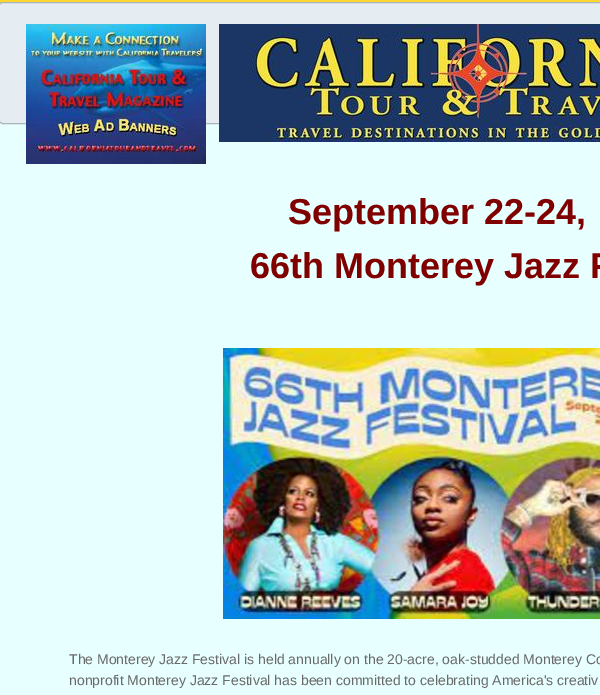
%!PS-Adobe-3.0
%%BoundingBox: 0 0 600 695
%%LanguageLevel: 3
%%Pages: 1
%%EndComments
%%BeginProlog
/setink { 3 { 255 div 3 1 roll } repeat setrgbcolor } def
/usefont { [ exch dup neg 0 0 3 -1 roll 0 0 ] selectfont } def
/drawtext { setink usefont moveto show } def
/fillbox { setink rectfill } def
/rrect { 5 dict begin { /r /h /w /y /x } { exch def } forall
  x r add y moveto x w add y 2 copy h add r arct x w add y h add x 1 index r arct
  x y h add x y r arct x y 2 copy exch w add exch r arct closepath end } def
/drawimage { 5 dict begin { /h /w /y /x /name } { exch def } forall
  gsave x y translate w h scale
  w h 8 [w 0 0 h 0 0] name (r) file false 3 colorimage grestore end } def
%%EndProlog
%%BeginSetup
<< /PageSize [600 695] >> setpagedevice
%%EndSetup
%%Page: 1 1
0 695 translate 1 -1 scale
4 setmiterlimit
0 0 600 695 255 214 45 fillbox
0 123 600 572 232 255 255 fillbox
229 237 242 setink
-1.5 2.5 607 121 4.5 rrect gsave fill grestore
169 180 187 setink
stroke
(assets/img1.rgb) 26 24 180 140 drawimage
(assets/img2.rgb) 219 24 381 118 drawimage
(September 22-24,) 288 224 /LiberationSans-Bold 36 128 0 0 drawtext
(66th Monterey Jazz F) 250 278 /LiberationSans-Bold 36 128 0 0 drawtext
(assets/img3.rgb) 223 348 377 271 drawimage
(The Monterey Jazz Festival is held annually on the 20-acre, oak-studded Monterey Co) 69 664 /LiberationSans-Regular 14 105 105 105 drawtext
(nonprofit Monterey Jazz Festival has been committed to celebrating America's creativ) 69 685 /LiberationSans-Regular 14 105 105 105 drawtext
showpage
%%EOF
